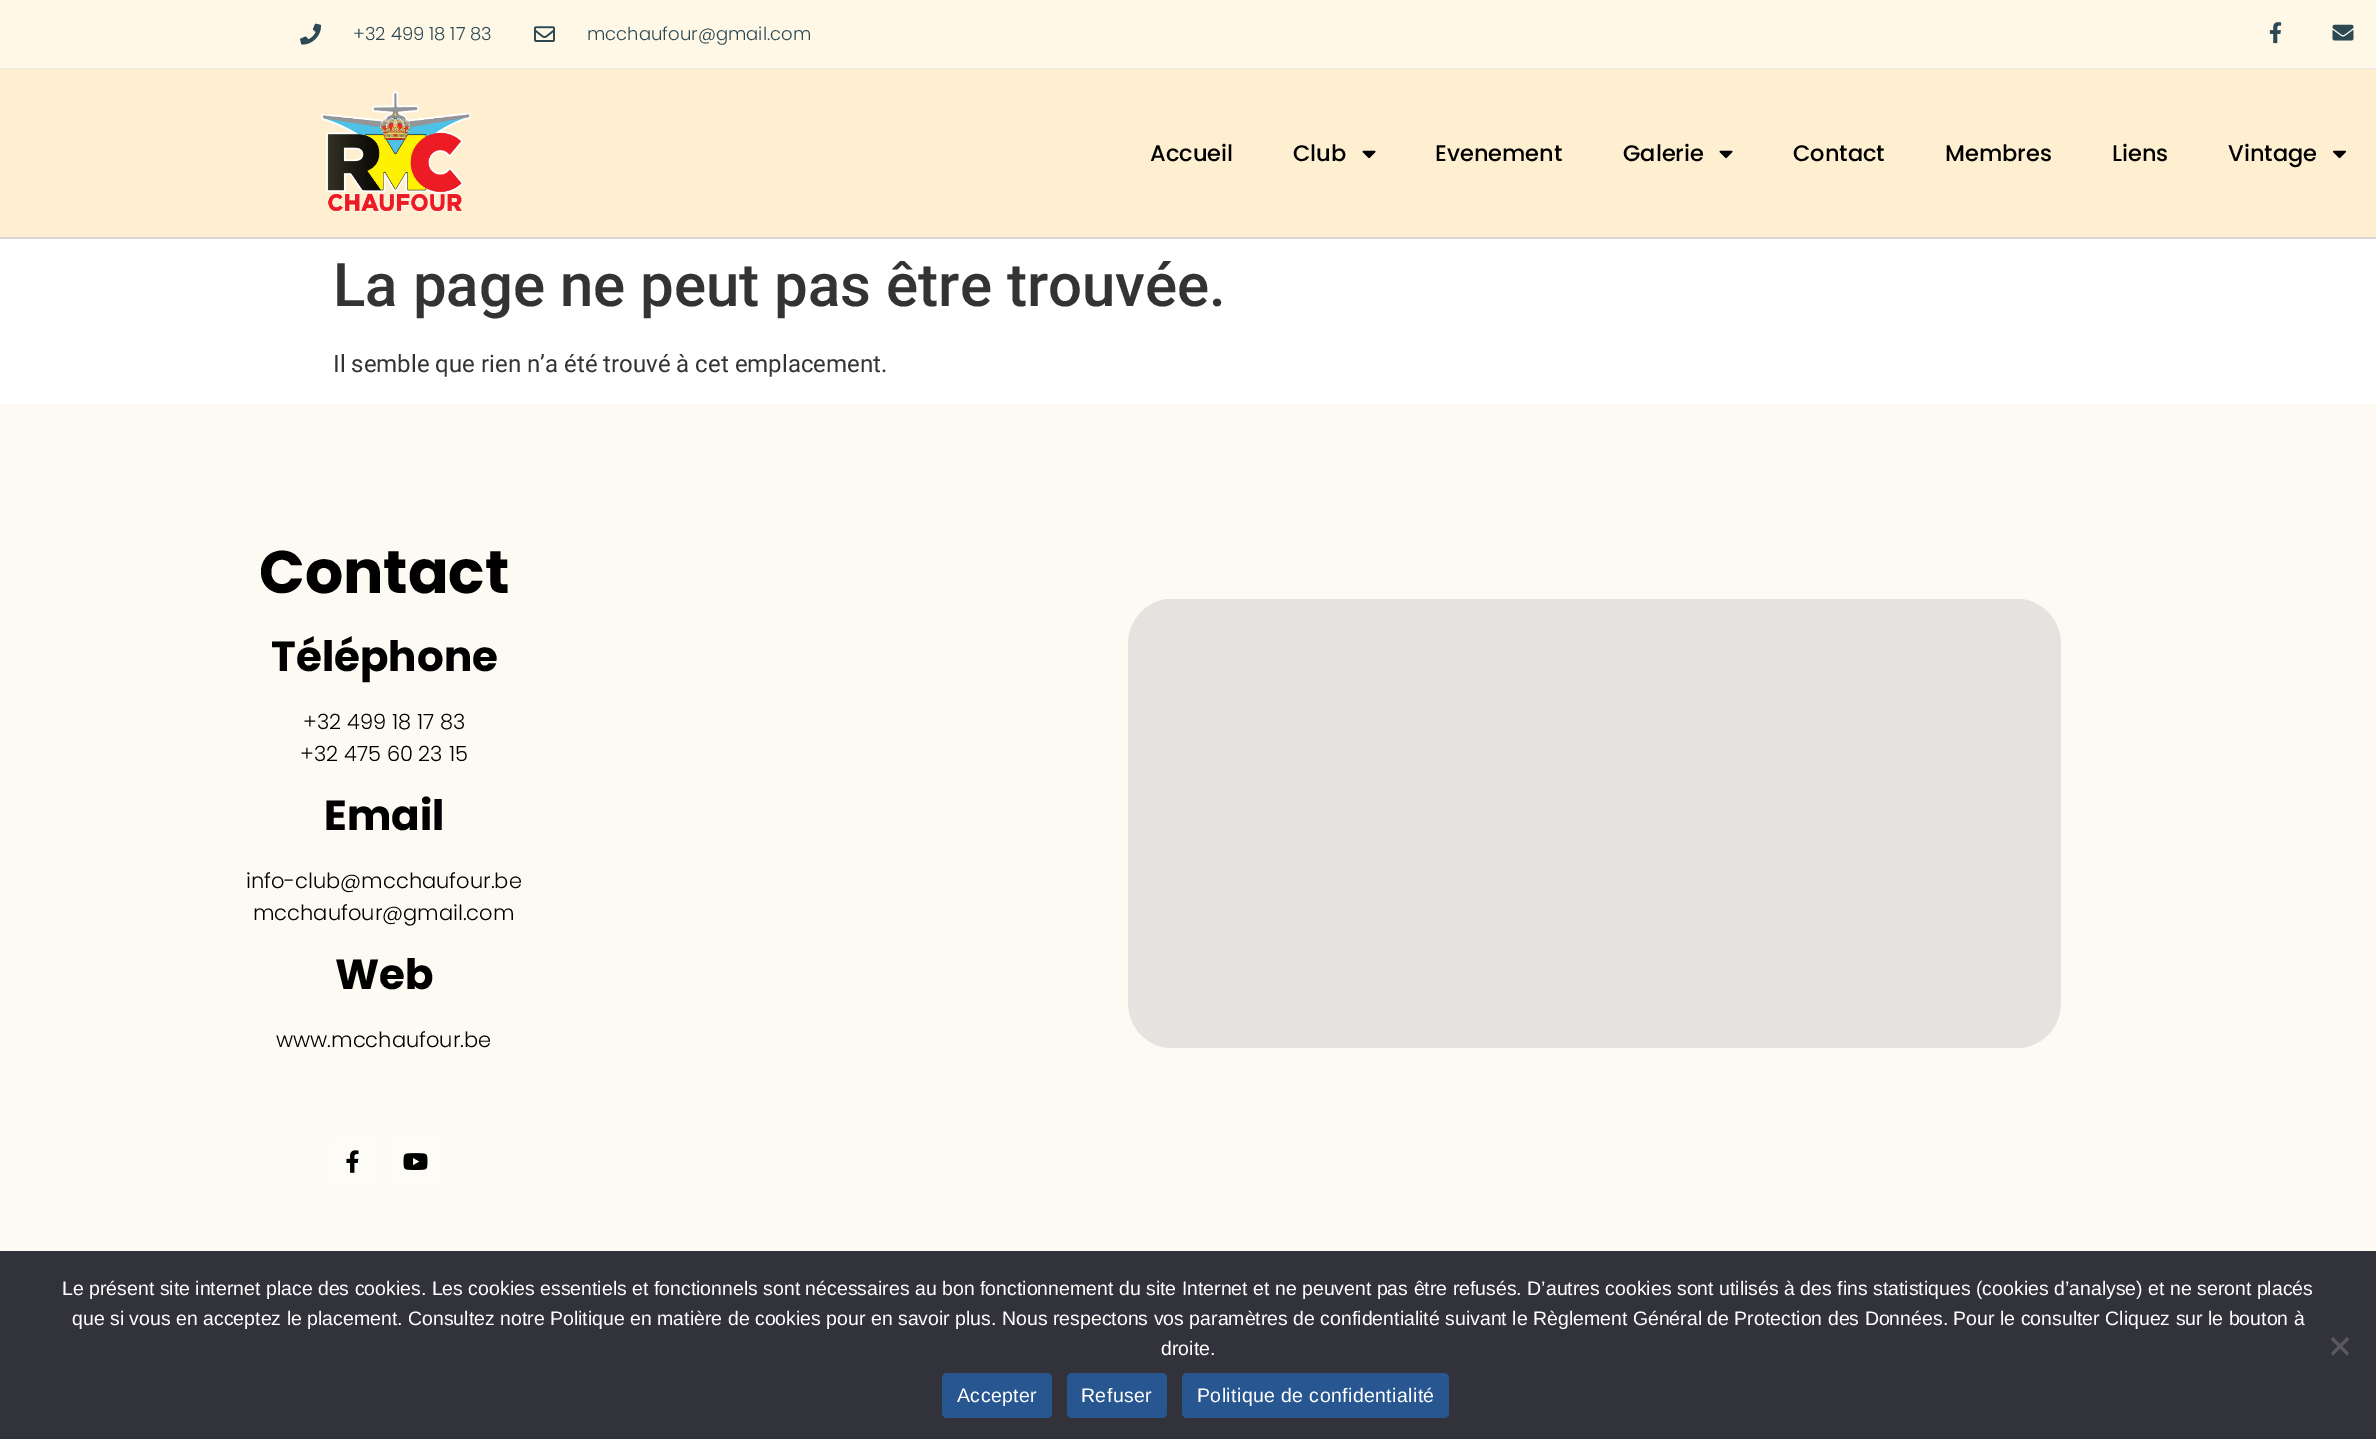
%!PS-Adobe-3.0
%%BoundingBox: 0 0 2376 1439
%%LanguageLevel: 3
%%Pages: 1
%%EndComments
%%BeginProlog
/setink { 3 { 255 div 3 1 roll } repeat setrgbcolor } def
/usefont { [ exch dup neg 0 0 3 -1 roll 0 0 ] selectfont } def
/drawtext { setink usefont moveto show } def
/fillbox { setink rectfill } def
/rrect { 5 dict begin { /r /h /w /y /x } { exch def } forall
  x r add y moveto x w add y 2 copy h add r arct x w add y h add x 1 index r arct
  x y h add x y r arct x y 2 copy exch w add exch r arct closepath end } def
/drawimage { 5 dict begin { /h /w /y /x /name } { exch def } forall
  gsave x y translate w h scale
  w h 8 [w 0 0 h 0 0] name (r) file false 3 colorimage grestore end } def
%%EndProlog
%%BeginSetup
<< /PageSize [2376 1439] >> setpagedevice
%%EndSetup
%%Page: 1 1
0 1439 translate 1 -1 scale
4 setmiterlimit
0 0 2376 1439 255 255 255 fillbox
0 70 2376 167 255 239 209 fillbox
0 0 2376 68 255 248 231 fillbox
0 68 2376 1 238 238 238 fillbox
0 69 2376 1 248 233 203 fillbox
(assets/img1.rgb) 300 23 21 22 drawimage
(+32 499 18 17 83) 353 40 /Poppins-Light 18 45 73 84 drawtext
(assets/img2.rgb) 534 26 21 16 drawimage
(mcchaufour@gmail.com) 587 40 /Poppins-Light 18 45 73 84 drawtext
(assets/img3.rgb) 2269 22 13 22 drawimage
(assets/img4.rgb) 2332 24 22 17 drawimage
0 237 2376 2 216 216 216 fillbox
(assets/img5.rgb) 321 91 150 121 drawimage
(Accueil) 1150 161 /Poppins-Medium 22.5 0 0 0 drawtext
(Club) 1293 161 /Poppins-Medium 22.5 0 0 0 drawtext
(assets/img6.rgb) 1362 150 14 9 drawimage
(Evenement) 1435 161 /Poppins-Medium 22.5 0 0 0 drawtext
(Galerie) 1623 161 /Poppins-Medium 22.5 0 0 0 drawtext
(assets/img6.rgb) 1719 150 14 9 drawimage
(Contact) 1793 161 /Poppins-Medium 22.5 0 0 0 drawtext
(Membres) 1945 161 /Poppins-Medium 22.5 0 0 0 drawtext
(Liens) 2112 161 /Poppins-Medium 22.5 0 0 0 drawtext
(Vintage) 2228 161 /Poppins-Medium 22.5 0 0 0 drawtext
(assets/img7.rgb) 2333 150 13 9 drawimage
(La page ne peut pas être trouvée.) 333 306 /Roboto-Medium 60 51 51 51 drawtext
(Il semble que rien n’a été trouvé à cet emplacement.) 333 372 /Roboto-Regular 24 51 51 51 drawtext
0 404 2376 847 253 250 243 fillbox
(Contact) 259 593 /Poppins-Bold 60 0 0 0 drawtext
(Téléphone) 271 671 /Poppins-Bold 42 0 0 0 drawtext
(+32 499 18 17 83) 303 729 /Poppins-Light 21 0 0 0 drawtext
(+32 475 60 23 15) 300 761 /Poppins-Light 21 0 0 0 drawtext
(Email) 324 830 /Poppins-Bold 42 0 0 0 drawtext
(info-club@mcchaufour.be) 246 888 /Poppins-Light 21 0 0 0 drawtext
(mcchaufour@gmail.com) 253 920 /Poppins-Light 21 0 0 0 drawtext
(Web) 335 989 /Poppins-Bold 42 0 0 0 drawtext
(www.mcchaufour.be) 276 1047 /Poppins-Light 21 0 0 0 drawtext
253 251 246 setink
329 1137 49 50 5 rrect fill
(assets/img8.rgb) 346 1150 13 23 drawimage
392 1137 49 50 5 rrect fill
(assets/img9.rgb) 403 1153 25 17 drawimage
(assets/img10.rgb) 1128 599 933 449 drawimage
0 1251 2376 188 50 50 58 fillbox
(Le présent site internet place des cookies. Les cookies essentiels et fonctionnels sont nécessaires au bon fonctionnement du site Internet et ne peuvent pas être refusés. D’autres cookies sont utilisés à des fins statistiques \(cookies d’analyse\) et ne seront placés) 62 1295 /LiberationSans-Regular 19.5 255 255 255 drawtext
(que si vous en acceptez le placement. Consultez notre Politique en matière de cookies pour en savoir plus. Nous respectons vos paramètres de confidentialité suivant le Règlement Général de Protection des Données. Pour le consulter Cliquez sur le bouton à) 72 1325 /LiberationSans-Regular 19.5 255 255 255 drawtext
(droite.) 1161 1355 /LiberationSans-Regular 19.5 255 255 255 drawtext
89 89 93 setink
2347 1337 moveto 2349 1339.5 lineto 2333 1355.5 lineto 2331 1353 lineto closepath fill
2331 1339.5 moveto 2333 1337 lineto 2349 1353 lineto 2347 1355.5 lineto closepath fill
39 86 145 setink
942 1373 110 45 5 rrect fill
255 255 255 setink
957 1402 moveto 0.4 0 (Accepter) ashow
39 86 145 setink
1067 1373 100 45 5 rrect fill
255 255 255 setink
1081 1402 moveto 0.4 0 (Refuser) ashow
39 86 145 setink
1182 1373 267 45 5 rrect fill
255 255 255 setink
1197 1402 moveto 0.4 0 (Politique de confidentialité) ashow
showpage
%%EOF
